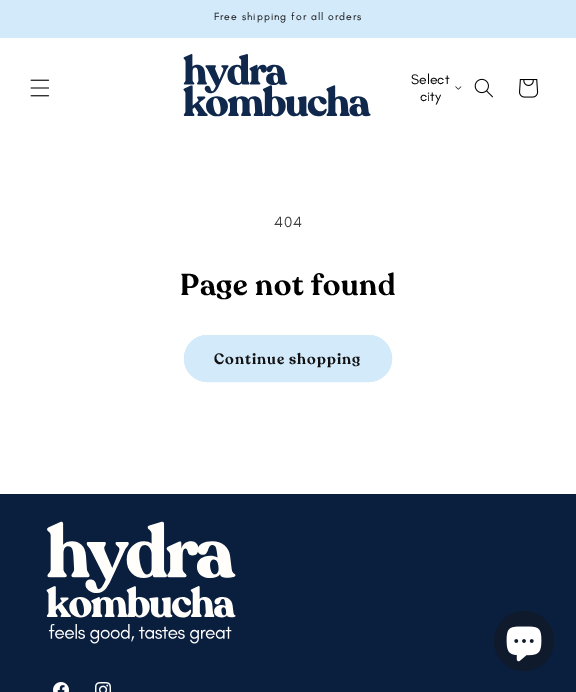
%!PS-Adobe-3.0
%%BoundingBox: 0 0 576 692
%%LanguageLevel: 3
%%Pages: 1
%%EndComments
%%BeginProlog
/setink { 3 { 255 div 3 1 roll } repeat setrgbcolor } def
/usefont { [ exch dup neg 0 0 3 -1 roll 0 0 ] selectfont } def
/drawtext { setink usefont moveto show } def
/fillbox { setink rectfill } def
/disc { newpath 0 360 arc closepath } def
/rrect { 5 dict begin { /r /h /w /y /x } { exch def } forall
  x r add y moveto x w add y 2 copy h add r arct x w add y h add x 1 index r arct
  x y h add x y r arct x y 2 copy exch w add exch r arct closepath end } def
/drawimage { 5 dict begin { /h /w /y /x /name } { exch def } forall
  gsave x y translate w h scale
  w h 8 [w 0 0 h 0 0] name (r) file false 3 colorimage grestore end } def
%%EndProlog
%%BeginSetup
<< /PageSize [576 692] >> setpagedevice
%%EndSetup
%%Page: 1 1
0 692 translate 1 -1 scale
4 setmiterlimit
0 0 576 692 255 255 255 fillbox
0 0 576 38 211 234 250 fillbox
/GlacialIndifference-Regular 10.5 usefont
18 18 18 setink
214 20 moveto 1 0 (Free shipping for all orders) ashow
(assets/img1.rgb) 30 79 20 18 drawimage
(assets/img2.rgb) 183 54 188 63 drawimage
(Select) 411 84 /GlacialIndifference-Regular 14 0 0 0 drawtext
(city) 420 101 /GlacialIndifference-Regular 14 0 0 0 drawtext
(assets/img3.rgb) 455 86 7 4 drawimage
(assets/img4.rgb) 474 78 19 20 drawimage
(assets/img5.rgb) 519 79 20 19 drawimage
/GlacialIndifference-Regular 15 usefont
64 64 64 setink
274 227 moveto 0.6 0 (404) ashow
/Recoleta-SemiBold 30 usefont
0 0 0 setink
180 295 moveto 0.6 0 (Page not found) ashow
211 234 250 setink
184 335 208 47 23.5 rrect fill
184.5 335.5 207 46 23 rrect stroke
/Recoleta-SemiBold 15 usefont
18 18 18 setink
214 364 moveto 1 0 (Continue shopping) ashow
0 494 576 198 10 30 62 fillbox
(assets/img6.rgb) 46 521 190 123 drawimage
(assets/img7.rgb) 53 682 16 10 drawimage
(assets/img8.rgb) 95 682 16 10 drawimage
15 26 44 setink
524 641 30 disc fill
(assets/img9.rgb) 506 626 36 36 drawimage
showpage
%%EOF
